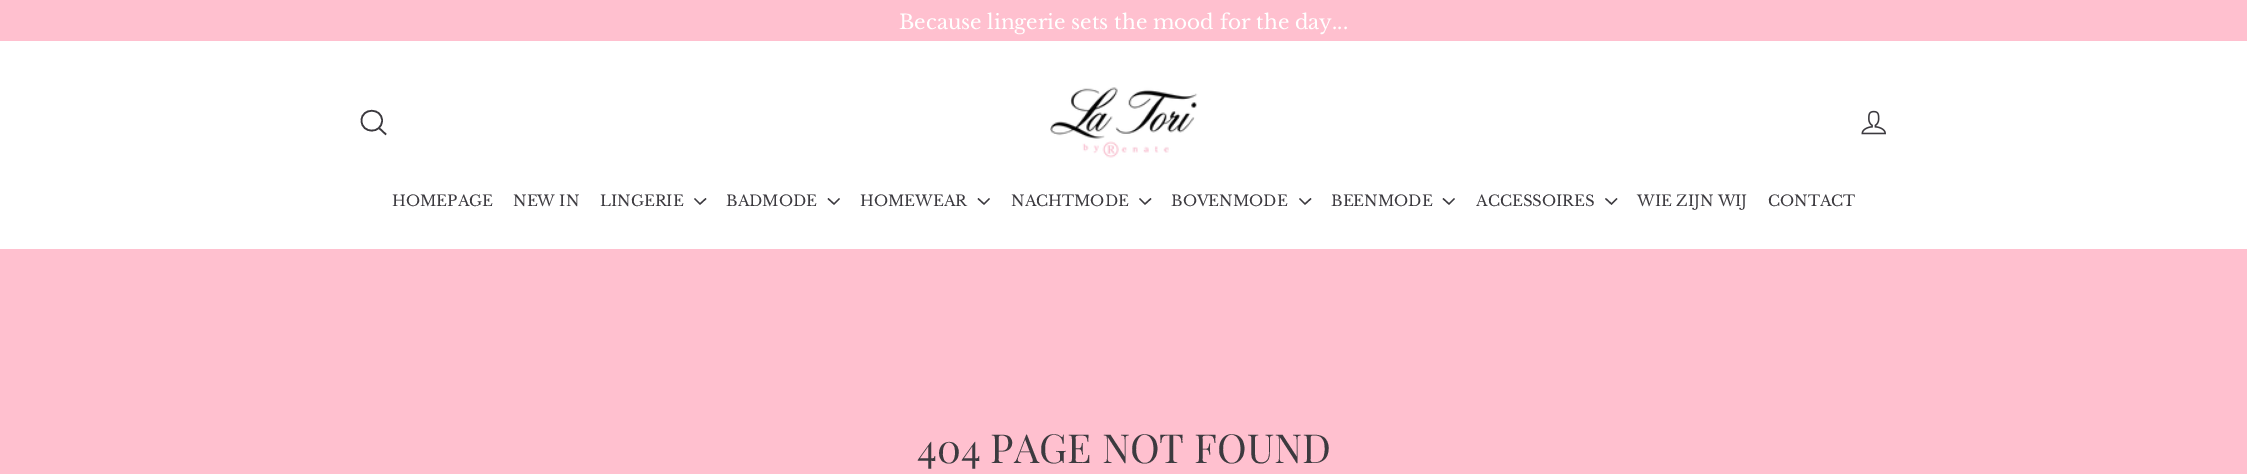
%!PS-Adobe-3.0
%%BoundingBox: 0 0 2247 474
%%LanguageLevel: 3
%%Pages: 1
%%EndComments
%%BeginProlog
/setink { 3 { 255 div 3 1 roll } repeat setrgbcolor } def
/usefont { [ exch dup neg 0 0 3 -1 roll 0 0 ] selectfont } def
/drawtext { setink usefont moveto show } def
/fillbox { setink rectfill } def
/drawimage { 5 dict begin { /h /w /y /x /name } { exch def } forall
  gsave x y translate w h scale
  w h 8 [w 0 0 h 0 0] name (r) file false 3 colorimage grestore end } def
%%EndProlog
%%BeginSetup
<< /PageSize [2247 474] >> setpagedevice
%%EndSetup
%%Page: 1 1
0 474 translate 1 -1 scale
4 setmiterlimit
0 0 2247 474 255 192 207 fillbox
(Because lingerie sets the mood for the day...) 899 29 /LibreBaskerville-Regular 20 255 255 255 drawtext
0 41 2247 208 255 255 255 fillbox
60 58 63 setink
1.6 setlinewidth
382 120.5 moveto 382 134 361.5 134 361.5 120.5 curveto 361.5 107.5 382 107.5 382 120.5 curveto closepath 386 134.5 moveto 379 128 lineto stroke
(assets/img1.rgb) 1050 87 148 71 drawimage
(assets/img2.rgb) 1861 110 25 25 drawimage
(HOMEPAGE) 392 206 /LibreBaskerville-Regular 15 60 58 63 drawtext
(NEW IN) 513 206 /LibreBaskerville-Regular 15 60 58 63 drawtext
(LINGERIE) 600 206 /LibreBaskerville-Regular 15 60 58 63 drawtext
1.3 setlinewidth
694.5 198.5 moveto 700 204 lineto 706 198.5 lineto stroke
(BADMODE) 726 206 /LibreBaskerville-Regular 15 60 58 63 drawtext
828 198.5 moveto 834 204 lineto 839.5 198.5 lineto stroke
(HOMEWEAR) 860 206 /LibreBaskerville-Regular 15 60 58 63 drawtext
978 198.5 moveto 984 204 lineto 989.5 198.5 lineto stroke
(NACHTMODE) 1011 206 /LibreBaskerville-Regular 15 60 58 63 drawtext
1139.5 198.5 moveto 1145 204 lineto 1151 198.5 lineto stroke
(BOVENMODE) 1171 206 /LibreBaskerville-Regular 15 60 58 63 drawtext
1299.5 198.5 moveto 1305 204 lineto 1311 198.5 lineto stroke
(BEENMODE) 1331 206 /LibreBaskerville-Regular 15 60 58 63 drawtext
1443 198.5 moveto 1449 204 lineto 1454.5 198.5 lineto stroke
(ACCESSOIRES) 1476 206 /LibreBaskerville-Regular 15 60 58 63 drawtext
1605.5 198.5 moveto 1611.5 204 lineto 1617 198.5 lineto stroke
(WIE ZIJN WIJ) 1637 206 /LibreBaskerville-Regular 15 60 58 63 drawtext
(CONTACT) 1768 206 /LibreBaskerville-Regular 15 60 58 63 drawtext
(404 PAGE NOT FOUND) 917 463 /PlayfairDisplay-Regular 40 60 58 63 drawtext
showpage
%%EOF
